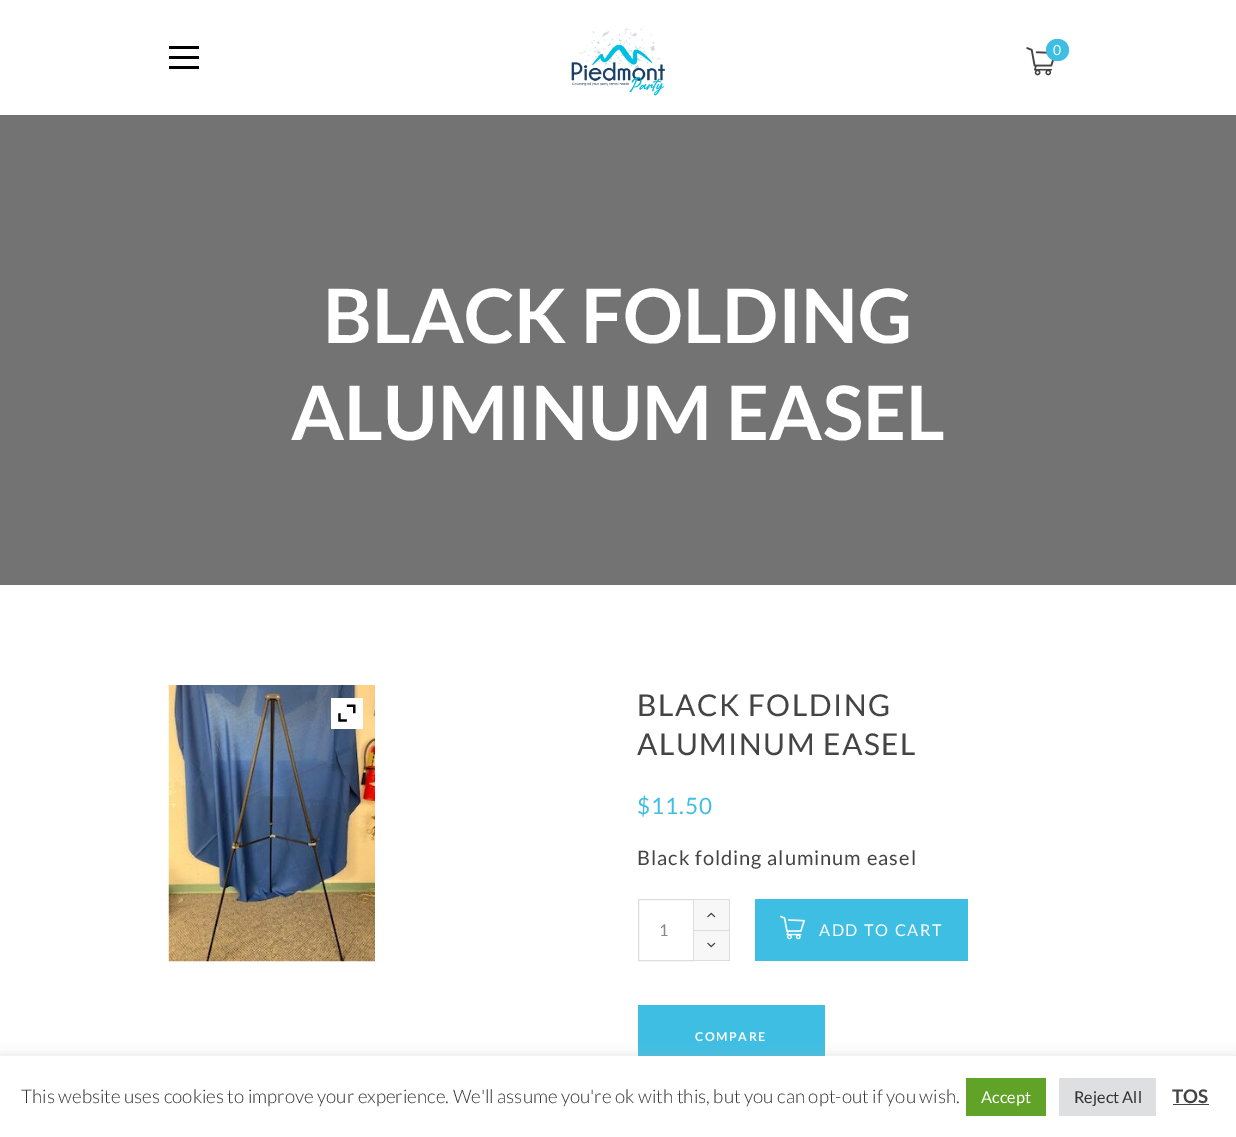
%!PS-Adobe-3.0
%%BoundingBox: 0 0 1236 1137
%%LanguageLevel: 3
%%Pages: 1
%%EndComments
%%BeginProlog
/setink { 3 { 255 div 3 1 roll } repeat setrgbcolor } def
/usefont { [ exch dup neg 0 0 3 -1 roll 0 0 ] selectfont } def
/drawtext { setink usefont moveto show } def
/fillbox { setink rectfill } def
/setalpha { dup .setfillconstantalpha .setstrokeconstantalpha } def
/rrect { 5 dict begin { /r /h /w /y /x } { exch def } forall
  x r add y moveto x w add y 2 copy h add r arct x w add y h add x 1 index r arct
  x y h add x y r arct x y 2 copy exch w add exch r arct closepath end } def
/softshadow { 12 dict begin { /a /b /q /h /w /y /x } { exch def } forall gsave /was 0 def
  9 -2 -9 { dup b mul 4 div /e exch def 1 sub .425 mul 2.718 exch exp 1 add a .99 .min exch div /now exch def
    1 1 now sub 1 was sub div sub setalpha /was now def
    w h .min e 2 mul add 0 gt { x e sub y e sub w e 2 mul add h e 2 mul add
      q e add b .6 mul add w h .min 2 div e add .min 0 .max rrect fill } if } for grestore end } def
/drawimage { 5 dict begin { /h /w /y /x /name } { exch def } forall
  gsave x y translate w h scale
  w h 8 [w 0 0 h 0 0] name (r) file false 3 colorimage grestore end } def
%%EndProlog
%%BeginSetup
<< /PageSize [1236 1137] /PageUsesTransparency true >> setpagedevice
%%EndSetup
%%Page: 1 1
0 .pushpdf14devicefilter
0 1137 translate 1 -1 scale
4 setmiterlimit
0 0 1236 1137 255 255 255 fillbox
169 46 30 3 0 0 0 fillbox
169 56 30 3 0 0 0 fillbox
169 66 30 3 0 0 0 fillbox
(assets/img1.rgb) 571 28 94 68 drawimage
(assets/img2.rgb) 1026 47 28 29 drawimage
63 190 227 setink
1046 39 23 22 11 rrect fill
(0) 1053 55 /Lato-Regular 14 255 255 255 drawtext
0 115 1236 470 115 115 115 fillbox
(BLACK FOLDING) 323 343 /Lato-Bold 75 255 255 255 drawtext
(ALUMINUM EASEL) 291 440 /Lato-Bold 75 255 255 255 drawtext
(assets/img3.rgb) 168 685 207 277 drawimage
331 698 32 31 255 255 255 fillbox
(assets/img4.rgb) 338 704 18 18 drawimage
/Lato-Regular 30 usefont
68 68 68 setink
637 716 moveto 1.5 0 (BLACK FOLDING) ashow
637 755 moveto 1.5 0 (ALUMINUM EASEL) ashow
/Lato-Regular 22.5 usefont
63 190 227 setink
637 814 moveto 1 0 ($11.50) ashow
/Lato-Regular 20 usefont
68 68 68 setink
637 865 moveto 1 0 (Black folding aluminum easel) ashow
221 221 221 setink
638.5 899.5 55 61 rectstroke
/Lato-Regular 16.25 usefont
136 136 136 setink
659 936 moveto 1.6 0 (1) ashow
694 900 35 30 247 247 247 fillbox
694 899 36 1 221 221 221 fillbox
729 899 1 32 221 221 221 fillbox
694 930 36 1 221 221 221 fillbox
(assets/img5.rgb) 707 912 9 6 drawimage
694 931 35 29 247 247 247 fillbox
729 931 1 30 221 221 221 fillbox
694 960 36 1 221 221 221 fillbox
(assets/img6.rgb) 707 942 9 6 drawimage
755 899 213 62 63 190 227 fillbox
(assets/img7.rgb) 780 915 25 25 drawimage
255 255 255 setink
819 936 moveto 1.6 0 (ADD TO CART) ashow
638 1005 187 51 63 190 227 fillbox
/Lato-Bold 12.25 usefont
255 255 255 setink
695 1041 moveto 1.6 0 (COMPARE) ashow
172 171 171 setink
0 1055 1236 81 0 6 0.3 softshadow
0 1056 1236 81 255 255 255 fillbox
(This website uses cookies to improve your experience. We'll assume you're ok with this, but you can opt-out if you wish.) 21 1103 /Lato-Light 18.75 51 51 51 drawtext
966 1078 80 38 97 162 41 fillbox
(Accept) 981 1103 /Lato-Regular 16.25 255 255 255 drawtext
1059 1078 97 38 222 223 224 fillbox
(Reject All) 1074 1103 /Lato-Regular 16.25 51 51 51 drawtext
(TOS) 1172 1103 /Lato-Bold 18.75 68 68 68 drawtext
1173 1104 36 1 68 68 68 fillbox
.poppdf14devicefilter showpage
%%EOF
